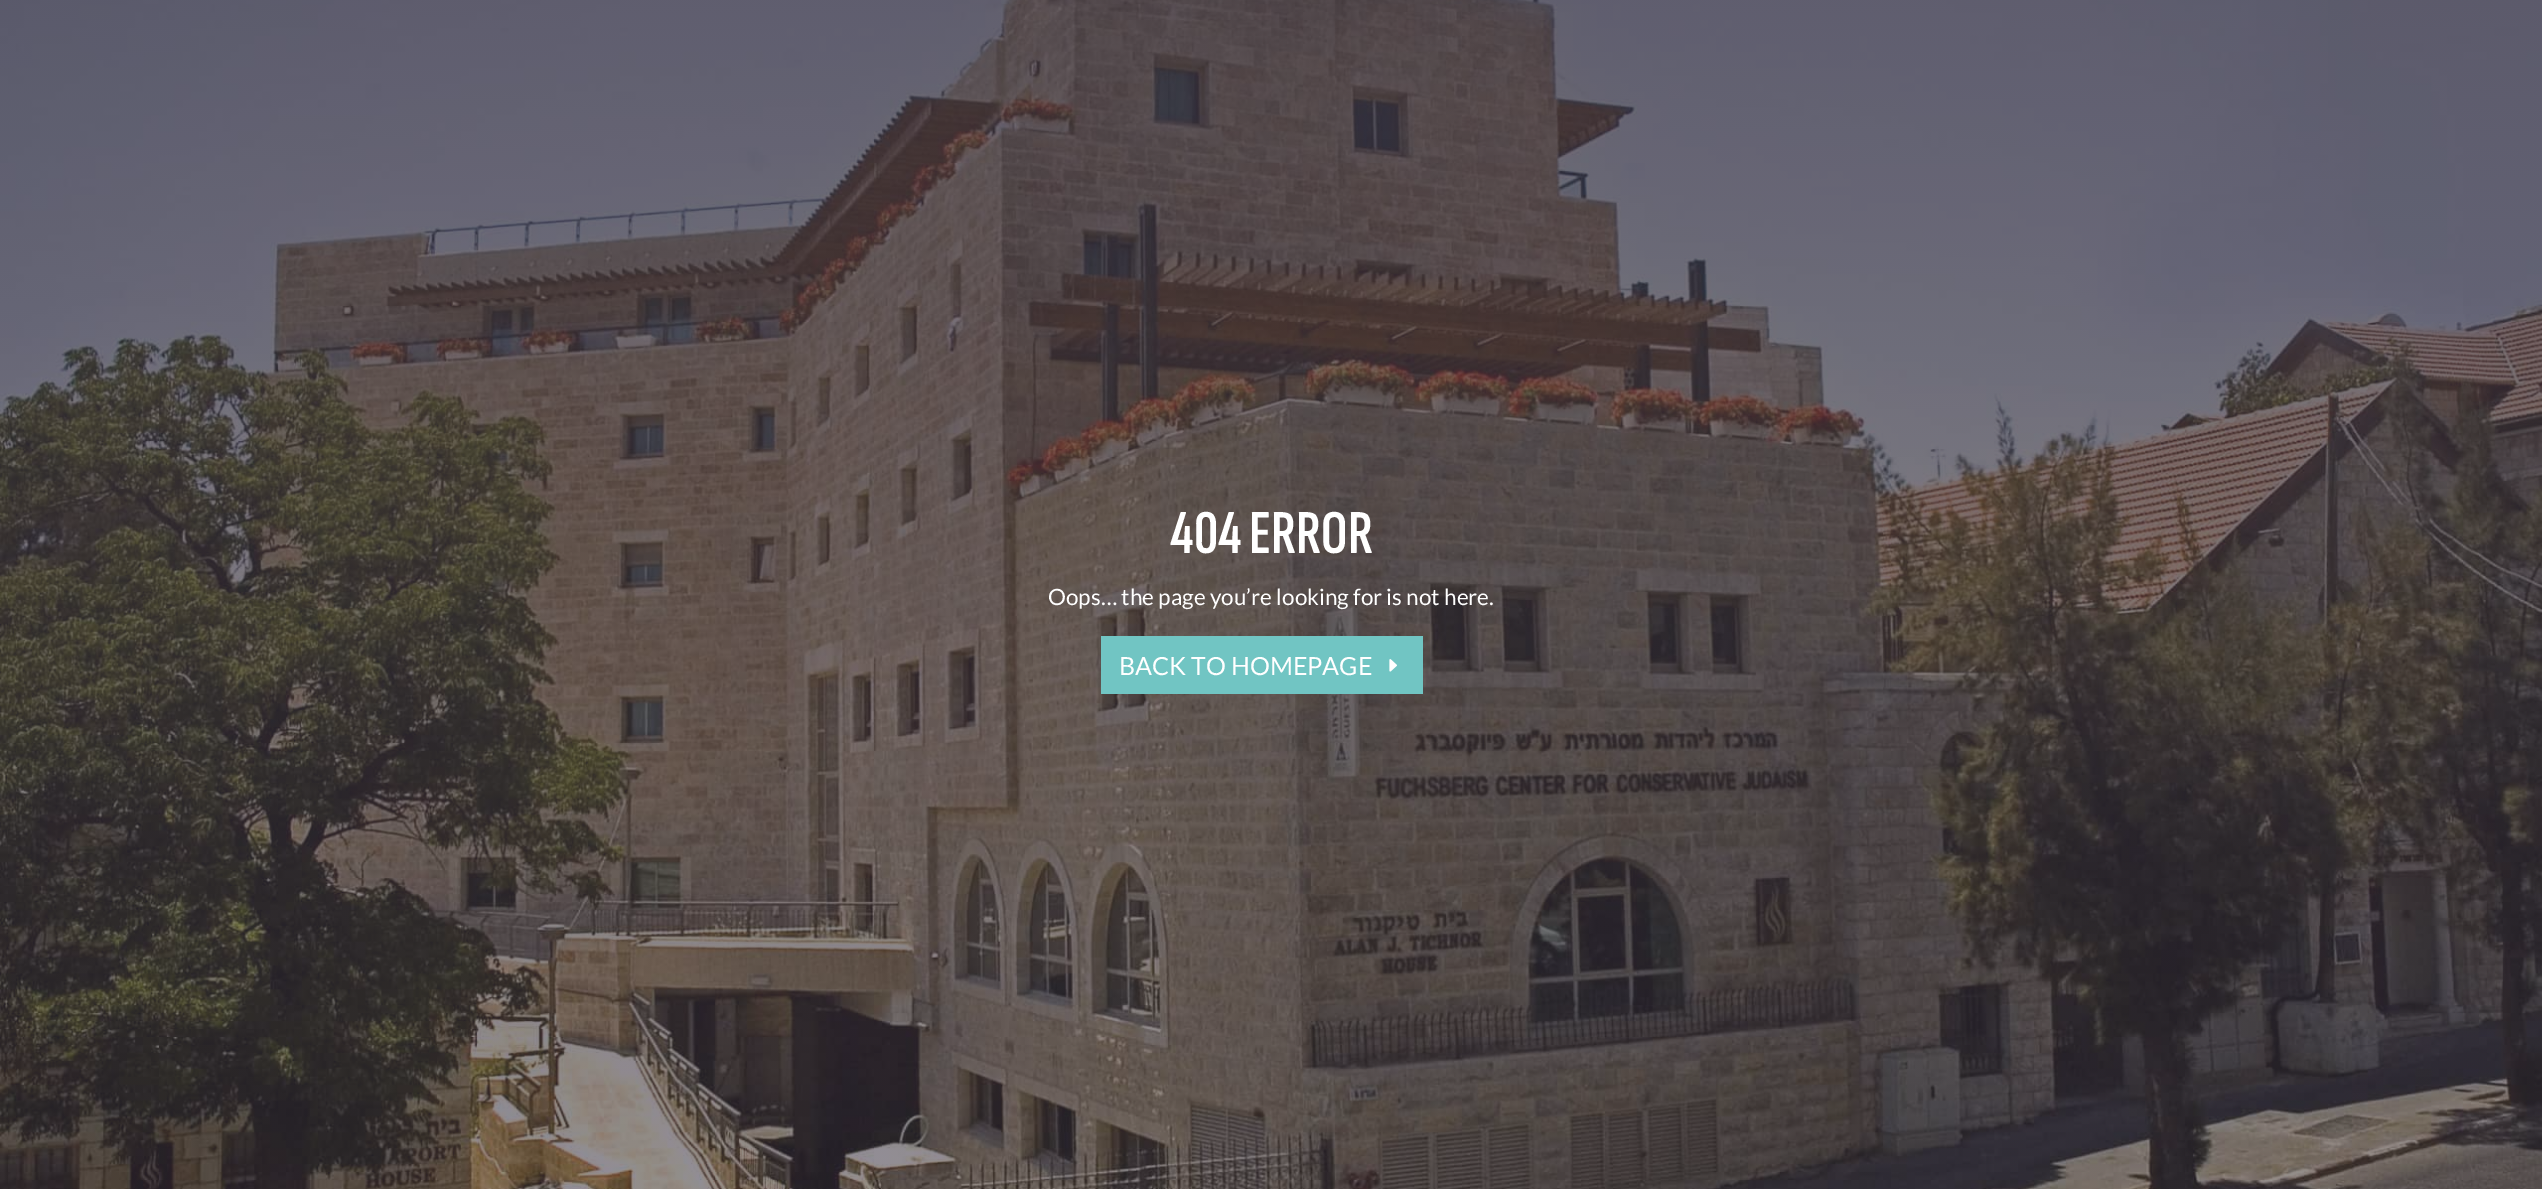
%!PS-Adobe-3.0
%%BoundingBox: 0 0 2542 1189
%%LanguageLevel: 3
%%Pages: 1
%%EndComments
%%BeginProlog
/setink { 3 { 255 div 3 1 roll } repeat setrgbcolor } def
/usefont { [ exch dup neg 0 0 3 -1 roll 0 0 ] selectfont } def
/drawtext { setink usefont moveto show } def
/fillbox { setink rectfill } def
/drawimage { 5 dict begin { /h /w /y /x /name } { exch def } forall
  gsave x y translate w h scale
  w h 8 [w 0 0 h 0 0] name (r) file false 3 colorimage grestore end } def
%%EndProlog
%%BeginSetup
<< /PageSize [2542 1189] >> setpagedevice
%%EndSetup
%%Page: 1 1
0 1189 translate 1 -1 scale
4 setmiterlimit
0 0 2542 1189 255 255 255 fillbox
(assets/img1.rgb) 0 0 2542 1189 drawimage
(404 ERROR) 1170 553 /SofiaSansExtraCondensed-SemiBold 62.5 255 255 255 drawtext
(Oops… the page you’re looking for is not here.) 1048 605 /Lato-Regular 22.5 255 255 255 drawtext
1101 636 322 58 113 197 195 fillbox
(BACK TO HOMEPAGE) 1119 675 /Lato-Regular 25 255 255 255 drawtext
(assets/img2.rgb) 1389 659 8 13 drawimage
showpage
%%EOF
